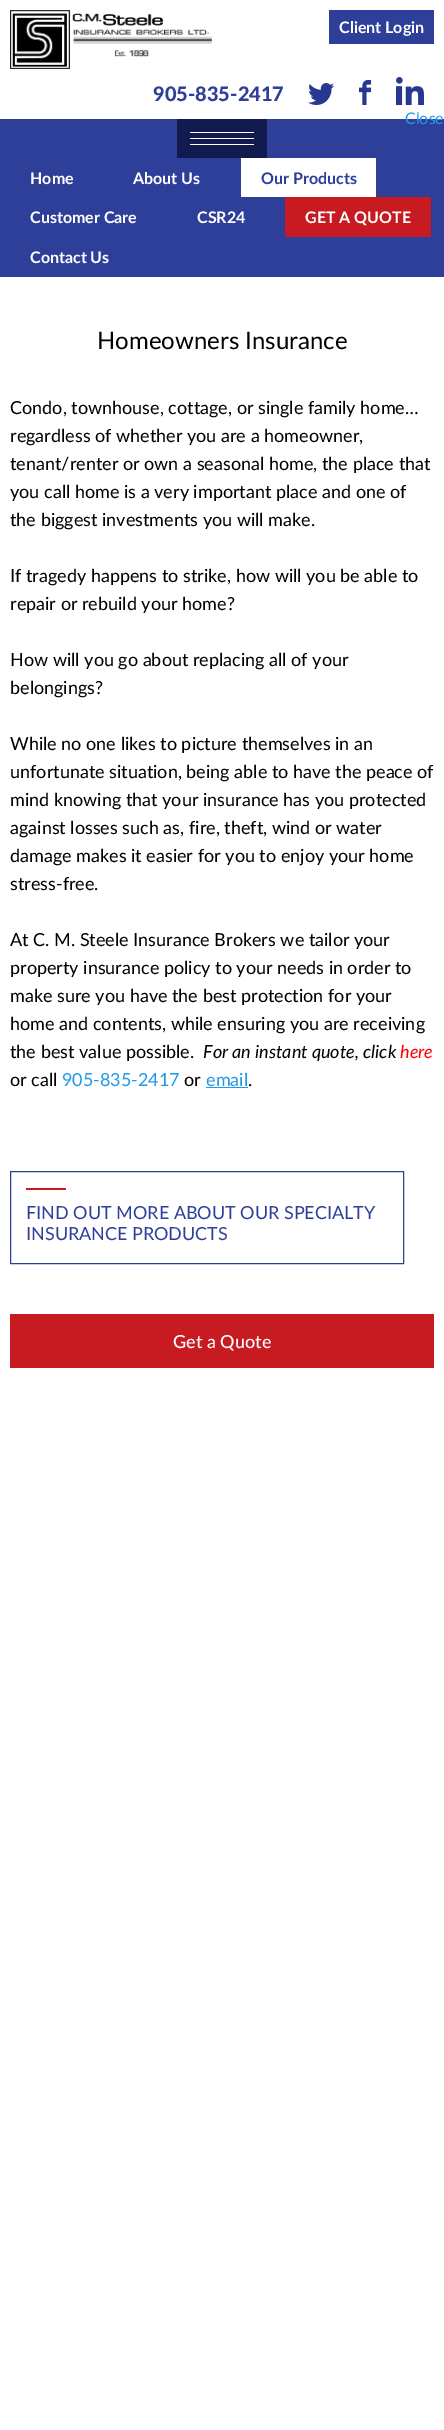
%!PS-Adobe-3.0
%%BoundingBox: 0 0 444 2430
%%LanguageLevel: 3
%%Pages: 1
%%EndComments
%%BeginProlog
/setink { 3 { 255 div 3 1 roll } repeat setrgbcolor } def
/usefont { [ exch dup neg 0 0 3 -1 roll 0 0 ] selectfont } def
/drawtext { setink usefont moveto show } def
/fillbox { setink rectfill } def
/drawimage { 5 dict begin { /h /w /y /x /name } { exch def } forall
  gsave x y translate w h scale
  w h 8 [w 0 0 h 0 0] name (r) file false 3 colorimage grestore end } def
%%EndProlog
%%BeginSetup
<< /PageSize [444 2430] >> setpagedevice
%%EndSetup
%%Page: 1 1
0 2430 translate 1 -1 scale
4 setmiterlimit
0 0 444 2430 255 255 255 fillbox
(assets/img1.rgb) 10 10 202 59 drawimage
329 10 105 34 46 63 154 fillbox
(Client Login) 339 33 /Lato-Bold 16 255 255 255 drawtext
(905-835-2417) 153 101 /Lato-Black 20 46 63 154 drawtext
(assets/img2.rgb) 308 83 27 22 drawimage
(assets/img3.rgb) 359 80 13 25 drawimage
(assets/img4.rgb) 396 77 28 28 drawimage
0 119 444 158 46 63 154 fillbox
(Close) 405 124 /Lato-Regular 16 33 153 232 drawtext
177 119 90 39 18 27 79 fillbox
190 132 64 1 255 255 255 fillbox
190 138 64 1 255 255 255 fillbox
190 144 64 1 255 255 255 fillbox
(Home) 30 184 /Lato-Bold 16 255 255 255 drawtext
(About Us) 133 184 /Lato-Bold 16 255 255 255 drawtext
241 158 135 39 255 255 255 fillbox
(Our Products) 261 184 /Lato-Bold 16 46 63 154 drawtext
(Customer Care) 30 223 /Lato-Bold 16 255 255 255 drawtext
(CSR24) 197 223 /Lato-Bold 16 255 255 255 drawtext
285 197 146 40 199 27 33 fillbox
(GET A QUOTE) 305 223 /Lato-Bold 16 255 255 255 drawtext
(Contact Us) 30 263 /Lato-Bold 16 255 255 255 drawtext
(Homeowners Insurance) 97 349 /Lato-Regular 24 0 0 0 drawtext
(Condo, townhouse, cottage, or single family home…) 10 414 /Lato-Regular 18 0 0 0 drawtext
(regardless of whether you are a homeowner,) 10 442 /Lato-Regular 18 0 0 0 drawtext
(tenant/renter or own a seasonal home, the place that) 10 470 /Lato-Regular 18 0 0 0 drawtext
(you call home is a very important place and one of) 10 498 /Lato-Regular 18 0 0 0 drawtext
(the biggest investments you will make.) 10 526 /Lato-Regular 18 0 0 0 drawtext
(If tragedy happens to strike, how will you be able to) 10 582 /Lato-Regular 18 0 0 0 drawtext
(repair or rebuild your home?) 10 610 /Lato-Regular 18 0 0 0 drawtext
(How will you go about replacing all of your) 10 666 /Lato-Regular 18 0 0 0 drawtext
(belongings?) 10 694 /Lato-Regular 18 0 0 0 drawtext
(While no one likes to picture themselves in an) 10 750 /Lato-Regular 18 0 0 0 drawtext
(unfortunate situation, being able to have the peace of) 10 778 /Lato-Regular 18 0 0 0 drawtext
(mind knowing that your insurance has you protected) 10 806 /Lato-Regular 18 0 0 0 drawtext
(against losses such as, fire, theft, wind or water) 10 834 /Lato-Regular 18 0 0 0 drawtext
(damage makes it easier for you to enjoy your home) 10 862 /Lato-Regular 18 0 0 0 drawtext
(stress-free.) 10 890 /Lato-Regular 18 0 0 0 drawtext
(At C. M. Steele Insurance Brokers we tailor your) 10 946 /Lato-Regular 18 0 0 0 drawtext
(property insurance policy to your needs in order to) 10 974 /Lato-Regular 18 0 0 0 drawtext
(make sure you have the best protection for your) 10 1002 /Lato-Regular 18 0 0 0 drawtext
(home and contents, while ensuring you are receiving) 10 1030 /Lato-Regular 18 0 0 0 drawtext
(the best value possible.) 10 1058 /Lato-Regular 18 0 0 0 drawtext
(For an instant quote, click) 203 1058 /Lato-Italic 18 0 0 0 drawtext
(here) 400 1058 /Lato-Italic 18 255 0 0 drawtext
(or call) 10 1086 /Lato-Regular 18 0 0 0 drawtext
(905-835-2417) 62 1086 /Lato-Regular 18 33 153 232 drawtext
(or) 184 1086 /Lato-Regular 18 0 0 0 drawtext
(email) 206 1086 /Lato-Regular 18 33 153 232 drawtext
206 1087 42 1 33 153 232 fillbox
(.) 248 1086 /Lato-Regular 18 0 0 0 drawtext
46 63 154 setink
10.5 1171.5 393 92 rectstroke
26 1188 40 2 199 27 33 fillbox
(FIND OUT MORE ABOUT OUR SPECIALTY) 26 1219 /Lato-Regular 18 46 63 154 drawtext
(INSURANCE PRODUCTS) 26 1240 /Lato-Regular 18 46 63 154 drawtext
10 1314 424 54 199 27 33 fillbox
(Get a Quote) 173 1348 /Lato-Medium 18 255 255 255 drawtext
showpage
%%EOF
